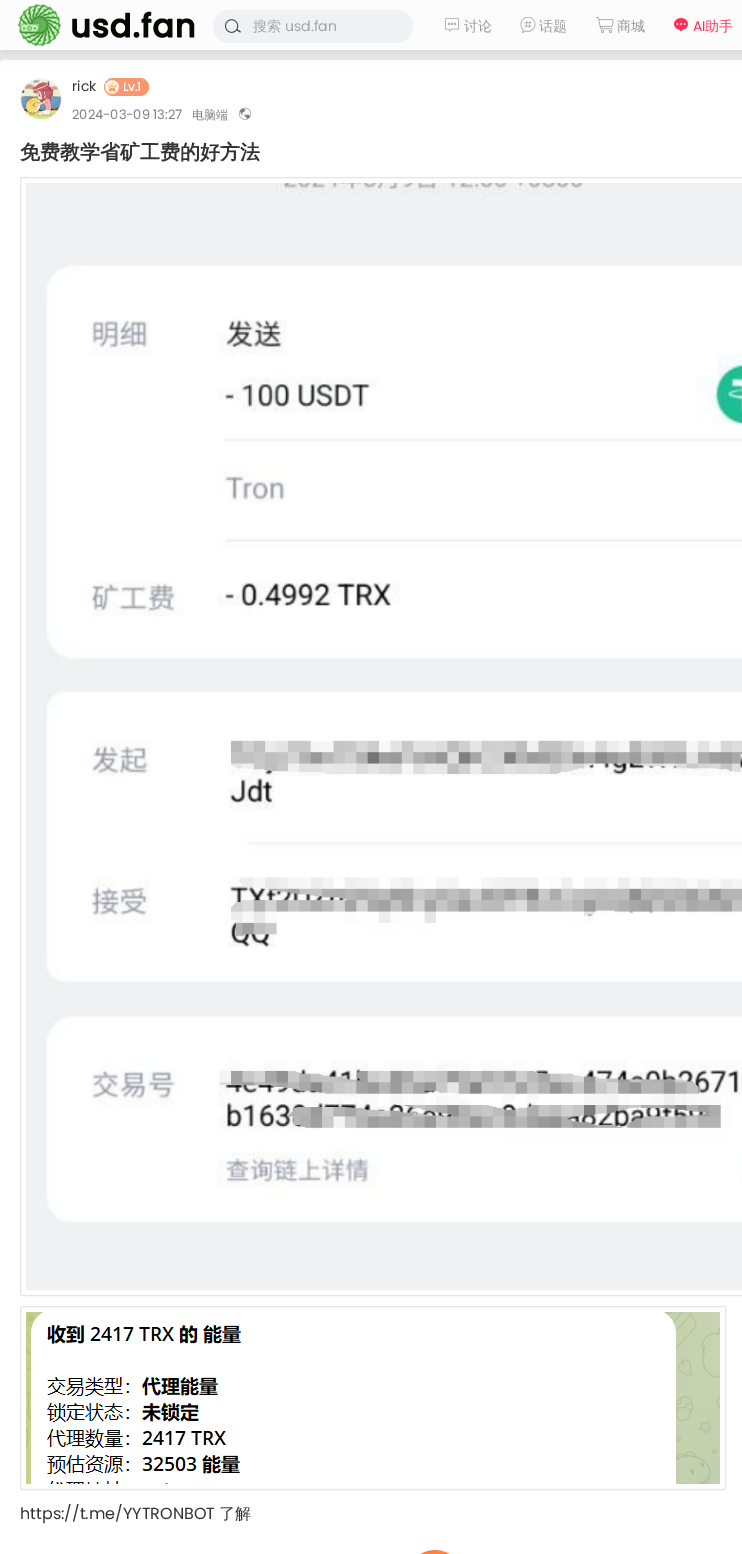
%!PS-Adobe-3.0
%%BoundingBox: 0 0 742 1554
%%LanguageLevel: 3
%%Pages: 1
%%EndComments
%%BeginProlog
/setink { 3 { 255 div 3 1 roll } repeat setrgbcolor } def
/usefont { [ exch dup neg 0 0 3 -1 roll 0 0 ] selectfont } def
/drawtext { setink usefont moveto show } def
/fillbox { setink rectfill } def
/setalpha { dup .setfillconstantalpha .setstrokeconstantalpha } def
/disc { newpath 0 360 arc closepath } def
/rrect { 5 dict begin { /r /h /w /y /x } { exch def } forall
  x r add y moveto x w add y 2 copy h add r arct x w add y h add x 1 index r arct
  x y h add x y r arct x y 2 copy exch w add exch r arct closepath end } def
/softshadow { 12 dict begin { /a /b /q /h /w /y /x } { exch def } forall gsave /was 0 def
  9 -2 -9 { dup b mul 4 div /e exch def 1 sub .425 mul 2.718 exch exp 1 add a .99 .min exch div /now exch def
    1 1 now sub 1 was sub div sub setalpha /was now def
    w h .min e 2 mul add 0 gt { x e sub y e sub w e 2 mul add h e 2 mul add
      q e add b .6 mul add w h .min 2 div e add .min 0 .max rrect fill } if } for grestore end } def
/drawimage { 5 dict begin { /h /w /y /x /name } { exch def } forall
  gsave x y translate w h scale
  w h 8 [w 0 0 h 0 0] name (r) file false 3 colorimage grestore end } def
%%EndProlog
%%BeginSetup
<< /PageSize [742 1554] /PageUsesTransparency true >> setpagedevice
%%EndSetup
%%Page: 1 1
0 .pushpdf14devicefilter
0 1554 translate 1 -1 scale
4 setmiterlimit
0 0 742 1554 237 237 239 fillbox
255 255 255 setink
0 60 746 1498 4 rrect fill
0 0 0 setink
0 6 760 50 0 6 0.07 softshadow
0 0 742 50 252 252 253 fillbox
(assets/img1.rgb) 18 4 177 42 drawimage
240 241 244 setink
213 10 200 33 16.5 rrect fill
(assets/img2.rgb) 225 19 16 14 drawimage
(搜索) 253 31 /WenQuanYiZenHei-Medium 14 164 164 164 drawtext
(usd.fan) 285 31 /Poppins-Regular 14 164 164 164 drawtext
(assets/img3.rgb) 445 18 14 14 drawimage
(讨论) 464 31 /WenQuanYiZenHei-Medium 14 153 153 153 drawtext
(assets/img4.rgb) 520 17 16 16 drawimage
(话题) 539 31 /WenQuanYiZenHei-Medium 14 153 153 153 drawtext
(assets/img5.rgb) 596 17 18 16 drawimage
(商城) 617 31 /WenQuanYiZenHei-Medium 14 153 153 153 drawtext
(assets/img6.rgb) 674 18 14 14 drawimage
(AI) 693 31 /Poppins-Regular 14 255 45 85 drawtext
(助手) 705 31 /WenQuanYiZenHei-Medium 14 255 45 85 drawtext
247 247 247 setink
41 99 21 disc fill
(assets/img7.rgb) 21 79 40 40 drawimage
(rick) 72 91 /Poppins-Regular 14 51 51 51 drawtext
252 150 110 setink
104 78 45 18 9 rrect fill
(assets/img8.rgb) 104 79 16 16 drawimage
(Lv.1) 123 91 /Poppins-Bold 12 255 255 255 drawtext
(2024-03-09 13:27) 72 119 /Poppins-Regular 13 128 128 128 drawtext
(电脑端) 192 119 /WenQuanYiZenHei-Medium 12 128 128 128 drawtext
(assets/img9.rgb) 239 107 12 13 drawimage
(免费教学省矿工费的好方法) 20 159 /WenQuanYiZenHei-Bold 20 51 51 51 drawtext
229 229 229 setink
20.5 177.5 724 1118 1.5 rrect stroke
(assets/img10.rgb) 26 183 716 1107 drawimage
20.5 1306.5 705 183 1.5 rrect stroke
(assets/img11.rgb) 26 1312 694 172 drawimage
(https://t.me/YYTRONBOT) 20 1519 /Poppins-Regular 16 51 51 51 drawtext
(了解) 219 1519 /WenQuanYiZenHei-Medium 16 51 51 51 drawtext
(assets/img12.rgb) 420 1550 30 4 drawimage
.poppdf14devicefilter showpage
%%EOF
